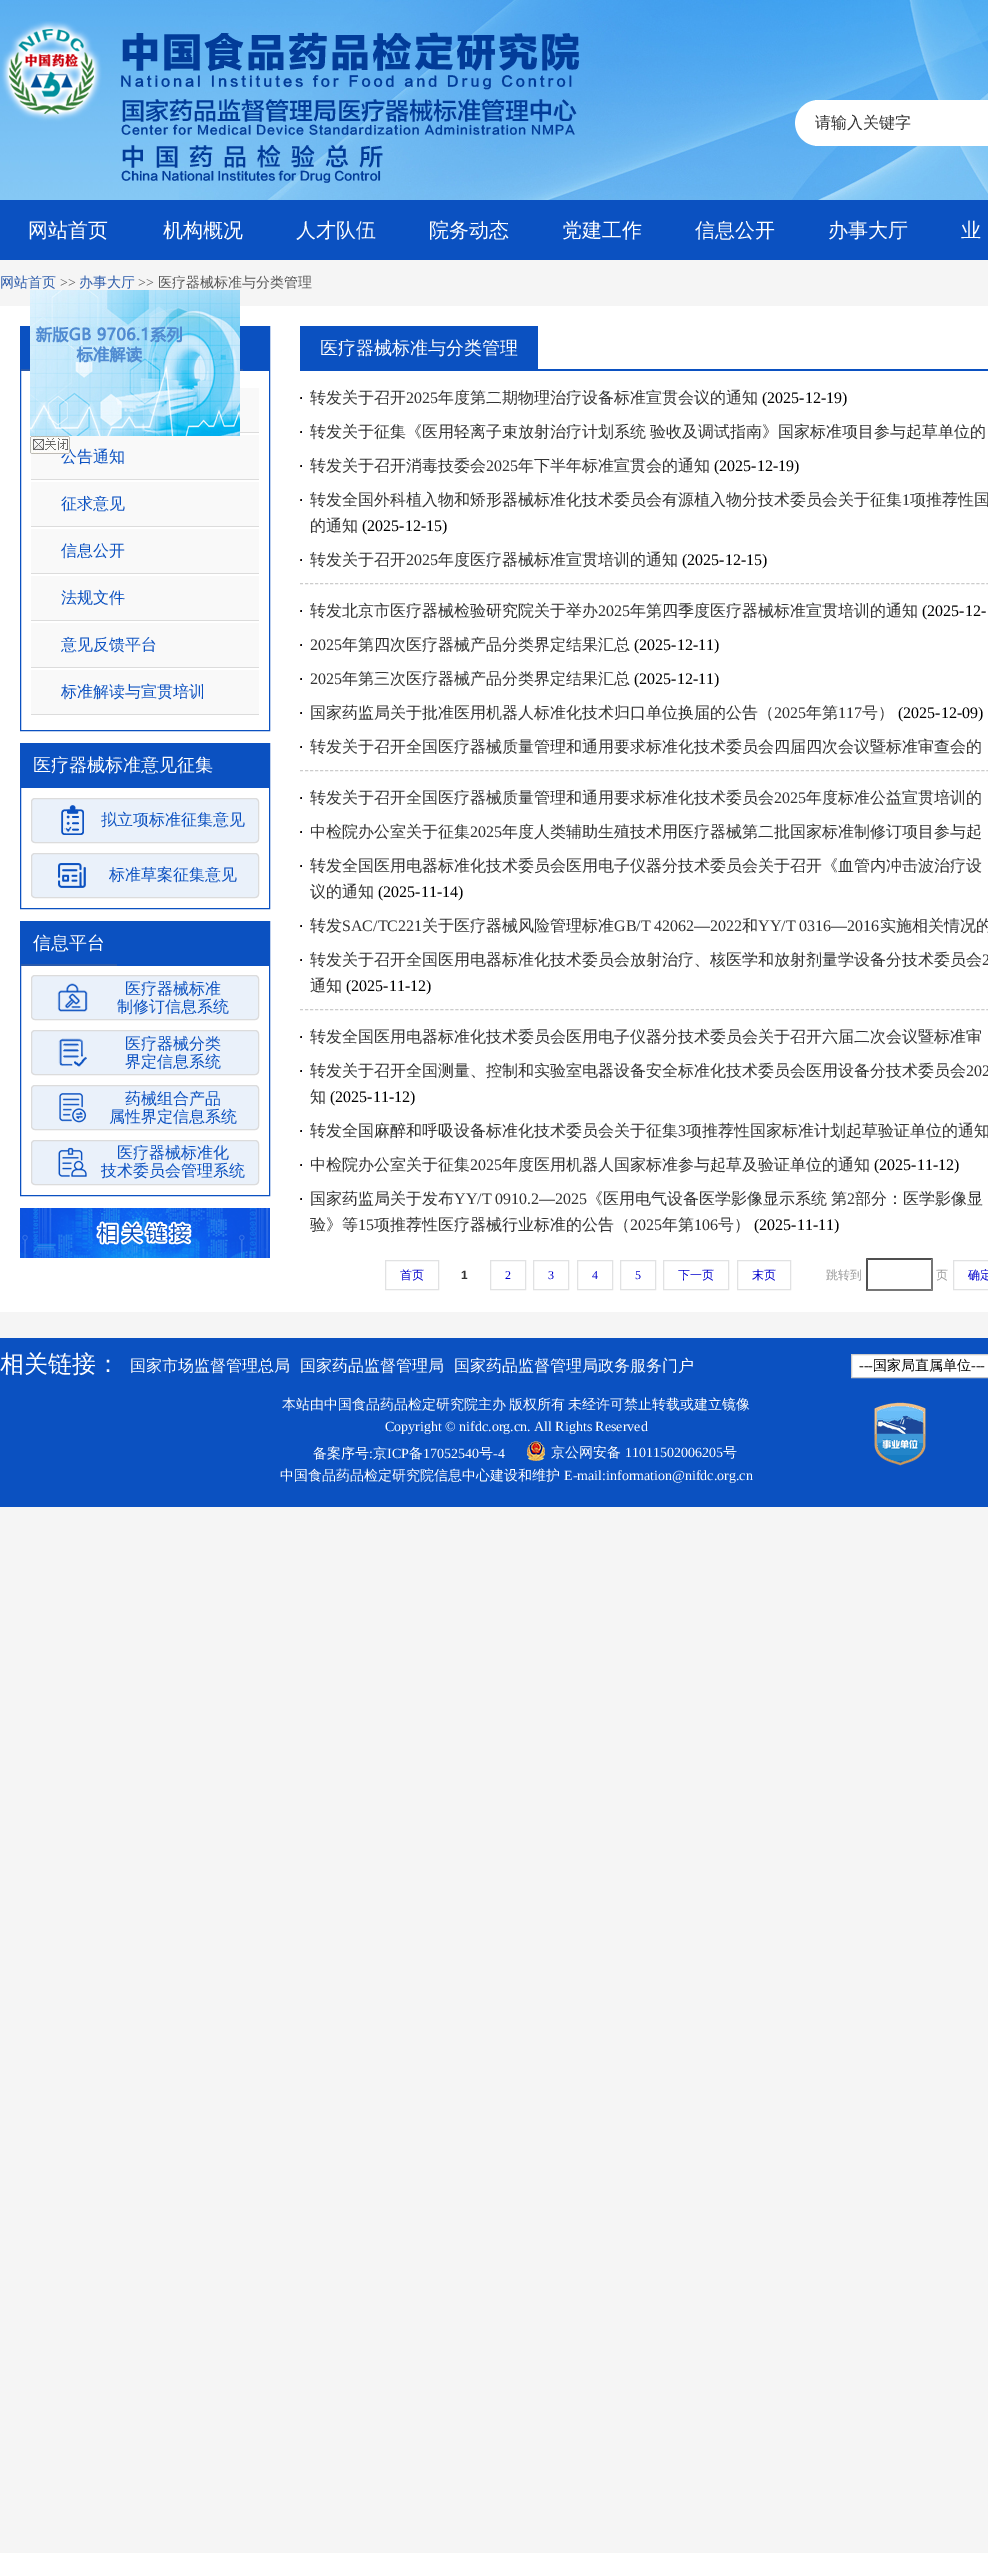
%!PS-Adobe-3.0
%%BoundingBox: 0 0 988 2553
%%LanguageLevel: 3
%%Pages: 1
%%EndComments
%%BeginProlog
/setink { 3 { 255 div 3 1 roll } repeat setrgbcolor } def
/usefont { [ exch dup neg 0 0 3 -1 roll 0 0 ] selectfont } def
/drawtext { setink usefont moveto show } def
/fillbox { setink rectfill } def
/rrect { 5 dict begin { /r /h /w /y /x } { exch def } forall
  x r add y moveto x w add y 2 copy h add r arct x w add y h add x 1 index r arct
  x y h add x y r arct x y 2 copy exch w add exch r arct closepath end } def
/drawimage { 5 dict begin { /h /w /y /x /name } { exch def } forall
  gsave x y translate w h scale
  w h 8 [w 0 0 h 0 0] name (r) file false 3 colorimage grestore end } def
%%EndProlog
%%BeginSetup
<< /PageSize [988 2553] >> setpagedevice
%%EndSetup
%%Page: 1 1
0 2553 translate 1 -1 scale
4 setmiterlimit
0 0 988 2553 245 245 245 fillbox
(assets/img1.rgb) 0 0 179 200 drawimage
(assets/img2.rgb) 179 0 809 200 drawimage
(assets/img3.rgb) 1 21 579 162 drawimage
(assets/img4.rgb) 795 100 20 46 drawimage
815 100 173 46 255 255 255 fillbox
(请输入关键字) 815 128 /WenQuanYiZenHei-Medium 16 51 51 51 drawtext
0 200 988 60 11 81 193 fillbox
(网站首页) 28 237 /WenQuanYiZenHei-Medium 20 255 255 255 drawtext
(机构概况) 163 237 /WenQuanYiZenHei-Medium 20 255 255 255 drawtext
(人才队伍) 296 237 /WenQuanYiZenHei-Medium 20 255 255 255 drawtext
(院务动态) 429 237 /WenQuanYiZenHei-Medium 20 255 255 255 drawtext
(党建工作) 562 237 /WenQuanYiZenHei-Medium 20 255 255 255 drawtext
(信息公开) 695 237 /WenQuanYiZenHei-Medium 20 255 255 255 drawtext
(办事大厅) 828 237 /WenQuanYiZenHei-Medium 20 255 255 255 drawtext
(业) 961 237 /WenQuanYiZenHei-Medium 20 255 255 255 drawtext
(网站首页) 0 287 /WenQuanYiZenHei-Medium 14 43 90 170 drawtext
(>>) 60 287 /LiberationSerif-Regular 14 86 86 86 drawtext
(办事大厅) 79 287 /WenQuanYiZenHei-Medium 14 43 90 170 drawtext
(>>) 138 287 /LiberationSerif-Regular 14 86 86 86 drawtext
(医疗器械标准与分类管理) 158 287 /WenQuanYiZenHei-Medium 14 86 86 86 drawtext
0 306 988 1006 255 255 255 fillbox
11 81 193 setink
20.5 326.5 249 404 rectstroke
21 327 248 44 11 81 193 fillbox
21 369 222 2 43 90 170 fillbox
31 435 228 44 249 249 249 fillbox
(assets/img5.rgb) 30 290 210 146 drawimage
(公告通知) 61 462 /WenQuanYiZenHei-Medium 16 11 81 193 drawtext
(assets/img6.rgb) 30 436 40 18 drawimage
240 388 19 44 249 249 249 fillbox
240 432 19 1 220 220 220 fillbox
31 479 228 1 220 220 220 fillbox
31 482 228 44 249 249 249 fillbox
31 526 228 1 220 220 220 fillbox
(征求意见) 61 509 /WenQuanYiZenHei-Medium 16 11 81 193 drawtext
31 529 228 44 249 249 249 fillbox
31 573 228 1 220 220 220 fillbox
(信息公开) 61 556 /WenQuanYiZenHei-Medium 16 11 81 193 drawtext
31 576 228 44 249 249 249 fillbox
31 620 228 1 220 220 220 fillbox
(法规文件) 61 603 /WenQuanYiZenHei-Medium 16 11 81 193 drawtext
31 623 228 44 249 249 249 fillbox
31 667 228 1 220 220 220 fillbox
(意见反馈平台) 61 650 /WenQuanYiZenHei-Medium 16 11 81 193 drawtext
31 670 228 44 249 249 249 fillbox
31 714 228 1 220 220 220 fillbox
(标准解读与宣贯培训) 61 697 /WenQuanYiZenHei-Medium 16 11 81 193 drawtext
20.5 743.5 249 165 rectstroke
21 744 248 44 11 81 193 fillbox
(医疗器械标准意见征集) 33 771 /WenQuanYiZenHei-Medium 18 255 255 255 drawtext
234 241 250 setink
31 798 228 45 4 rrect fill
(assets/img7.rgb) 61 805 23 30 drawimage
220 220 220 setink
31.5 798.5 227 44 3.5 rrect stroke
(拟立项标准征集意见) 101 825 /WenQuanYiZenHei-Medium 16 11 81 193 drawtext
234 241 250 setink
31 853 228 45 4 rrect fill
(assets/img8.rgb) 58 863 28 25 drawimage
220 220 220 setink
31.5 853.5 227 44 3.5 rrect stroke
(标准草案征集意见) 109 880 /WenQuanYiZenHei-Medium 16 11 81 193 drawtext
20.5 921.5 249 274 rectstroke
21 922 248 44 11 81 193 fillbox
21 964 96 2 43 90 170 fillbox
(信息平台) 33 949 /WenQuanYiZenHei-Medium 18 255 255 255 drawtext
234 241 250 setink
31 975 228 45 4 rrect fill
(assets/img9.rgb) 57 983 31 29 drawimage
220 220 220 setink
31.5 975.5 227 44 3.5 rrect stroke
(医疗器械标准) 125 994 /WenQuanYiZenHei-Medium 16 11 81 193 drawtext
(制修订信息系统) 117 1012 /WenQuanYiZenHei-Medium 16 11 81 193 drawtext
234 241 250 setink
31 1030 228 45 4 rrect fill
(assets/img10.rgb) 58 1038 29 29 drawimage
220 220 220 setink
31.5 1030.5 227 44 3.5 rrect stroke
(医疗器械分类) 125 1049 /WenQuanYiZenHei-Medium 16 11 81 193 drawtext
(界定信息系统) 125 1067 /WenQuanYiZenHei-Medium 16 11 81 193 drawtext
234 241 250 setink
31 1085 228 45 4 rrect fill
(assets/img11.rgb) 59 1093 28 30 drawimage
220 220 220 setink
31.5 1085.5 227 44 3.5 rrect stroke
(药械组合产品) 125 1104 /WenQuanYiZenHei-Medium 16 11 81 193 drawtext
(属性界定信息系统) 109 1122 /WenQuanYiZenHei-Medium 16 11 81 193 drawtext
234 241 250 setink
31 1140 228 45 4 rrect fill
(assets/img12.rgb) 58 1147 29 30 drawimage
220 220 220 setink
31.5 1140.5 227 44 3.5 rrect stroke
(医疗器械标准化) 117 1158 /WenQuanYiZenHei-Medium 16 11 81 193 drawtext
(技术委员会管理系统) 101 1176 /WenQuanYiZenHei-Medium 16 11 81 193 drawtext
(assets/img13.rgb) 20 1208 250 50 drawimage
300 326 238 45 11 81 193 fillbox
(医疗器械标准与分类管理) 320 354 /WenQuanYiZenHei-Medium 18 255 255 255 drawtext
538 369 450 2 11 81 193 fillbox
(assets/img14.rgb) 300 397 2 2 drawimage
(转发关于召开) 310 403 /WenQuanYiZenHei-Medium 16 51 51 51 drawtext
(2025) 406 403 /LiberationSerif-Regular 16 51 51 51 drawtext
(年度第二期物理治疗设备标准宣贯会议的通知) 438 403 /WenQuanYiZenHei-Medium 16 51 51 51 drawtext
(\(2025-12-19\)) 762 403 /LiberationSerif-Regular 16 0 0 0 drawtext
(assets/img14.rgb) 300 431 2 2 drawimage
/WenQuanYiZenHei-Medium 16 usefont
51 51 51 setink
310 437 moveto -1 0 32 (转发关于征集《医用轻离子束放射治疗计划系统 验收及调试指南》国家标准项目参与起草单位的) widthshow
(assets/img14.rgb) 300 465 2 2 drawimage
(转发关于召开消毒技委会) 310 471 /WenQuanYiZenHei-Medium 16 51 51 51 drawtext
(2025) 486 471 /LiberationSerif-Regular 16 51 51 51 drawtext
(年下半年标准宣贯会的通知) 518 471 /WenQuanYiZenHei-Medium 16 51 51 51 drawtext
(\(2025-12-19\)) 714 471 /LiberationSerif-Regular 16 0 0 0 drawtext
(assets/img14.rgb) 300 499 2 2 drawimage
(转发全国外科植入物和矫形器械标准化技术委员会有源植入物分技术委员会关于征集) 310 505 /WenQuanYiZenHei-Medium 16 51 51 51 drawtext
(1) 902 505 /LiberationSerif-Regular 16 51 51 51 drawtext
(项推荐性国) 910 505 /WenQuanYiZenHei-Medium 16 51 51 51 drawtext
(的通知) 310 531 /WenQuanYiZenHei-Medium 16 51 51 51 drawtext
(\(2025-12-15\)) 362 531 /LiberationSerif-Regular 16 0 0 0 drawtext
(assets/img14.rgb) 300 559 2 2 drawimage
204 204 204 setink
[3 2.01] 0 setdash
300 583.5 moveto 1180 583.5 lineto stroke
(转发关于召开) 310 565 /WenQuanYiZenHei-Medium 16 51 51 51 drawtext
(2025) 406 565 /LiberationSerif-Regular 16 51 51 51 drawtext
(年度医疗器械标准宣贯培训的通知) 438 565 /WenQuanYiZenHei-Medium 16 51 51 51 drawtext
(\(2025-12-15\)) 682 565 /LiberationSerif-Regular 16 0 0 0 drawtext
(assets/img14.rgb) 300 610 2 2 drawimage
(转发北京市医疗器械检验研究院关于举办) 310 616 /WenQuanYiZenHei-Medium 16 51 51 51 drawtext
(2025) 598 616 /LiberationSerif-Regular 16 51 51 51 drawtext
(年第四季度医疗器械标准宣贯培训的通知) 630 616 /WenQuanYiZenHei-Medium 16 51 51 51 drawtext
(\(2025-12-) 922 616 /LiberationSerif-Regular 16 0 0 0 drawtext
(assets/img14.rgb) 300 644 2 2 drawimage
(2025) 310 650 /LiberationSerif-Regular 16 51 51 51 drawtext
(年第四次医疗器械产品分类界定结果汇总) 342 650 /WenQuanYiZenHei-Medium 16 51 51 51 drawtext
(\(2025-12-11\)) 634 650 /LiberationSerif-Regular 16 0 0 0 drawtext
(assets/img14.rgb) 300 678 2 2 drawimage
(2025) 310 684 /LiberationSerif-Regular 16 51 51 51 drawtext
(年第三次医疗器械产品分类界定结果汇总) 342 684 /WenQuanYiZenHei-Medium 16 51 51 51 drawtext
(\(2025-12-11\)) 634 684 /LiberationSerif-Regular 16 0 0 0 drawtext
(assets/img14.rgb) 300 712 2 2 drawimage
(国家药监局关于批准医用机器人标准化技术归口单位换届的公告（) 310 718 /WenQuanYiZenHei-Medium 16 51 51 51 drawtext
(2025) 774 718 /LiberationSerif-Regular 16 51 51 51 drawtext
(年第) 806 718 /WenQuanYiZenHei-Medium 16 51 51 51 drawtext
(117) 838 718 /LiberationSerif-Regular 16 51 51 51 drawtext
(号）) 862 718 /WenQuanYiZenHei-Medium 16 51 51 51 drawtext
(\(2025-12-09\)) 898 718 /LiberationSerif-Regular 16 0 0 0 drawtext
(assets/img14.rgb) 300 746 2 2 drawimage
204 204 204 setink
300 770.5 moveto 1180 770.5 lineto stroke
(转发关于召开全国医疗器械质量管理和通用要求标准化技术委员会四届四次会议暨标准审查会的) 310 752 /WenQuanYiZenHei-Medium 16 51 51 51 drawtext
(assets/img14.rgb) 300 797 2 2 drawimage
(转发关于召开全国医疗器械质量管理和通用要求标准化技术委员会) 310 803 /WenQuanYiZenHei-Medium 16 51 51 51 drawtext
(2025) 774 803 /LiberationSerif-Regular 16 51 51 51 drawtext
(年度标准公益宣贯培训的) 806 803 /WenQuanYiZenHei-Medium 16 51 51 51 drawtext
(assets/img14.rgb) 300 831 2 2 drawimage
(中检院办公室关于征集) 310 837 /WenQuanYiZenHei-Medium 16 51 51 51 drawtext
(2025) 470 837 /LiberationSerif-Regular 16 51 51 51 drawtext
(年度人类辅助生殖技术用医疗器械第二批国家标准制修订项目参与起) 502 837 /WenQuanYiZenHei-Medium 16 51 51 51 drawtext
(assets/img14.rgb) 300 865 2 2 drawimage
(转发全国医用电器标准化技术委员会医用电子仪器分技术委员会关于召开《血管内冲击波治疗设) 310 871 /WenQuanYiZenHei-Medium 16 51 51 51 drawtext
(议的通知) 310 897 /WenQuanYiZenHei-Medium 16 51 51 51 drawtext
(\(2025-11-14\)) 378 897 /LiberationSerif-Regular 16 0 0 0 drawtext
(assets/img14.rgb) 300 925 2 2 drawimage
(转发) 310 931 /WenQuanYiZenHei-Medium 16 51 51 51 drawtext
(SAC/TC221) 342 931 /LiberationSerif-Regular 16 51 51 51 drawtext
(关于医疗器械风险管理标准) 422 931 /WenQuanYiZenHei-Medium 16 51 51 51 drawtext
(GB/T 42062—2022) 614 931 /LiberationSerif-Regular 16 51 51 51 drawtext
(和) 742 931 /WenQuanYiZenHei-Medium 16 51 51 51 drawtext
(YY/T 0316—2016) 758 931 /LiberationSerif-Regular 16 51 51 51 drawtext
(实施相关情况的) 880 931 /WenQuanYiZenHei-Medium 16 51 51 51 drawtext
(assets/img14.rgb) 300 959 2 2 drawimage
204 204 204 setink
300 1009.5 moveto 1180 1009.5 lineto stroke
(转发关于召开全国医用电器标准化技术委员会放射治疗、核医学和放射剂量学设备分技术委员会) 310 965 /WenQuanYiZenHei-Medium 16 51 51 51 drawtext
(2) 982 965 /LiberationSerif-Regular 16 51 51 51 drawtext
(通知) 310 991 /WenQuanYiZenHei-Medium 16 51 51 51 drawtext
(\(2025-11-12\)) 346 991 /LiberationSerif-Regular 16 0 0 0 drawtext
(assets/img14.rgb) 300 1036 2 2 drawimage
(转发全国医用电器标准化技术委员会医用电子仪器分技术委员会关于召开六届二次会议暨标准审) 310 1042 /WenQuanYiZenHei-Medium 16 51 51 51 drawtext
(assets/img14.rgb) 300 1070 2 2 drawimage
(转发关于召开全国测量、控制和实验室电器设备安全标准化技术委员会医用设备分技术委员会) 310 1076 /WenQuanYiZenHei-Medium 16 51 51 51 drawtext
(202) 966 1076 /LiberationSerif-Regular 16 51 51 51 drawtext
(知) 310 1102 /WenQuanYiZenHei-Medium 16 51 51 51 drawtext
(\(2025-11-12\)) 330 1102 /LiberationSerif-Regular 16 0 0 0 drawtext
(assets/img14.rgb) 300 1130 2 2 drawimage
(转发全国麻醉和呼吸设备标准化技术委员会关于征集) 310 1136 /WenQuanYiZenHei-Medium 16 51 51 51 drawtext
(3) 678 1136 /LiberationSerif-Regular 16 51 51 51 drawtext
(项推荐性国家标准计划起草验证单位的通知) 686 1136 /WenQuanYiZenHei-Medium 16 51 51 51 drawtext
(assets/img14.rgb) 300 1164 2 2 drawimage
(中检院办公室关于征集) 310 1170 /WenQuanYiZenHei-Medium 16 51 51 51 drawtext
(2025) 470 1170 /LiberationSerif-Regular 16 51 51 51 drawtext
(年度医用机器人国家标准参与起草及验证单位的通知) 502 1170 /WenQuanYiZenHei-Medium 16 51 51 51 drawtext
(\(2025-11-12\)) 874 1170 /LiberationSerif-Regular 16 0 0 0 drawtext
(assets/img14.rgb) 300 1198 2 2 drawimage
(国家药监局关于发布) 310 1204 /WenQuanYiZenHei-Medium 16 51 51 51 drawtext
(YY/T 0910.2—2025) 454 1204 /LiberationSerif-Regular 16 51 51 51 drawtext
(《医用电气设备医学影像显示系统) 587 1204 /WenQuanYiZenHei-Medium 16 51 51 51 drawtext
(第) 831 1204 /WenQuanYiZenHei-Medium 16 51 51 51 drawtext
(2) 847 1204 /LiberationSerif-Regular 16 51 51 51 drawtext
(部分：医学影像显) 855 1204 /WenQuanYiZenHei-Medium 16 51 51 51 drawtext
(验》等) 310 1230 /WenQuanYiZenHei-Medium 16 51 51 51 drawtext
(15) 358 1230 /LiberationSerif-Regular 16 51 51 51 drawtext
(项推荐性医疗器械行业标准的公告（) 374 1230 /WenQuanYiZenHei-Medium 16 51 51 51 drawtext
(2025) 630 1230 /LiberationSerif-Regular 16 51 51 51 drawtext
(年第) 662 1230 /WenQuanYiZenHei-Medium 16 51 51 51 drawtext
(106) 694 1230 /LiberationSerif-Regular 16 51 51 51 drawtext
(号）) 718 1230 /WenQuanYiZenHei-Medium 16 51 51 51 drawtext
(\(2025-11-11\)) 754 1230 /LiberationSerif-Regular 16 0 0 0 drawtext
225 226 227 setink
[] 0 setdash
385.5 1260.5 53 29 rectstroke
(首页) 400 1279 /WenQuanYiZenHei-Medium 12 0 0 204 drawtext
(1) 461 1279 /LiberationSans-Bold 12 51 51 51 drawtext
225 226 227 setink
490.5 1260.5 35 29 rectstroke
(2) 505 1279 /LiberationSerif-Regular 12 0 0 204 drawtext
225 226 227 setink
533.5 1260.5 35 29 rectstroke
(3) 548 1279 /LiberationSerif-Regular 12 0 0 204 drawtext
225 226 227 setink
577.5 1260.5 35 29 rectstroke
(4) 592 1279 /LiberationSerif-Regular 12 0 0 204 drawtext
225 226 227 setink
620.5 1260.5 35 29 rectstroke
(5) 635 1279 /LiberationSerif-Regular 12 0 0 204 drawtext
225 226 227 setink
663.5 1260.5 65 29 rectstroke
(下一页) 678 1279 /WenQuanYiZenHei-Medium 12 0 0 204 drawtext
225 226 227 setink
737.5 1260.5 53 29 rectstroke
(末页) 752 1279 /WenQuanYiZenHei-Medium 12 0 0 204 drawtext
(跳转到) 826 1279 /WenQuanYiZenHei-Medium 12 153 153 153 drawtext
79 79 79 setink
866 1258 moveto 933 1258 lineto 931 1260 lineto 868 1260 lineto closepath fill
118 118 118 setink
933 1258 moveto 933 1291 lineto 931 1289 lineto 931 1260 lineto closepath fill
933 1291 moveto 866 1291 lineto 868 1289 lineto 931 1289 lineto closepath fill
79 79 79 setink
866 1291 moveto 866 1258 lineto 868 1260 lineto 868 1289 lineto closepath fill
(页) 936 1279 /WenQuanYiZenHei-Medium 12 153 153 153 drawtext
225 226 227 setink
953.5 1260.5 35 29 rectstroke
(确定) 968 1279 /WenQuanYiZenHei-Medium 12 0 0 204 drawtext
0 1338 988 169 11 81 193 fillbox
(相关链接：) 0 1372 /WenQuanYiZenHei-Medium 24 255 255 255 drawtext
(国家市场监督管理总局) 130 1371 /WenQuanYiZenHei-Medium 16 255 255 255 drawtext
(国家药品监督管理局) 300 1371 /WenQuanYiZenHei-Medium 16 255 255 255 drawtext
(国家药品监督管理局政务服务门户) 454 1371 /WenQuanYiZenHei-Medium 16 255 255 255 drawtext
851.5 1354.5 moveto 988.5 1354.5 lineto 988.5 1377.5 lineto 851.5 1377.5 lineto closepath gsave fill grestore
204 204 204 setink
stroke
(---) 859 1370 /LiberationSerif-Regular 14 0 0 0 drawtext
(国家局直属单位) 873 1370 /WenQuanYiZenHei-Medium 14 0 0 0 drawtext
(---) 971 1370 /LiberationSerif-Regular 14 0 0 0 drawtext
/WenQuanYiZenHei-Medium 14 usefont
255 255 255 setink
282 1409 moveto -1 0 32 (本站由中国食品药品检定研究院主办 版权所有 未经许可禁止转载或建立镜像) widthshow
(Copyright © nifdc.org.cn. All Rights Reserved) 385 1431 /LiberationSerif-Regular 14 255 255 255 drawtext
(备案序号) 313 1458 /WenQuanYiZenHei-Medium 14 255 255 255 drawtext
(:) 369 1458 /LiberationSerif-Regular 14 255 255 255 drawtext
(京) 373 1458 /WenQuanYiZenHei-Medium 14 255 255 255 drawtext
(ICP) 387 1458 /LiberationSerif-Regular 14 255 255 255 drawtext
(备) 409 1458 /WenQuanYiZenHei-Medium 14 255 255 255 drawtext
(17052540) 423 1458 /LiberationSerif-Regular 14 255 255 255 drawtext
(号) 479 1458 /WenQuanYiZenHei-Medium 14 255 255 255 drawtext
(-4) 493 1458 /LiberationSerif-Regular 14 255 255 255 drawtext
(assets/img15.rgb) 527 1441 18 20 drawimage
(京公网安备) 551 1457 /WenQuanYiZenHei-Medium 14 255 255 255 drawtext
(11011502006205) 625 1457 /LiberationSerif-Regular 14 255 255 255 drawtext
(号) 723 1457 /WenQuanYiZenHei-Medium 14 255 255 255 drawtext
(中国食品药品检定研究院信息中心建设和维护) 280 1480 /WenQuanYiZenHei-Medium 14 255 255 255 drawtext
(E-mail:information@nifdc.org.cn) 564 1480 /LiberationSerif-Regular 14 255 255 255 drawtext
(assets/img16.rgb) 874 1402 52 64 drawimage
showpage
%%EOF
